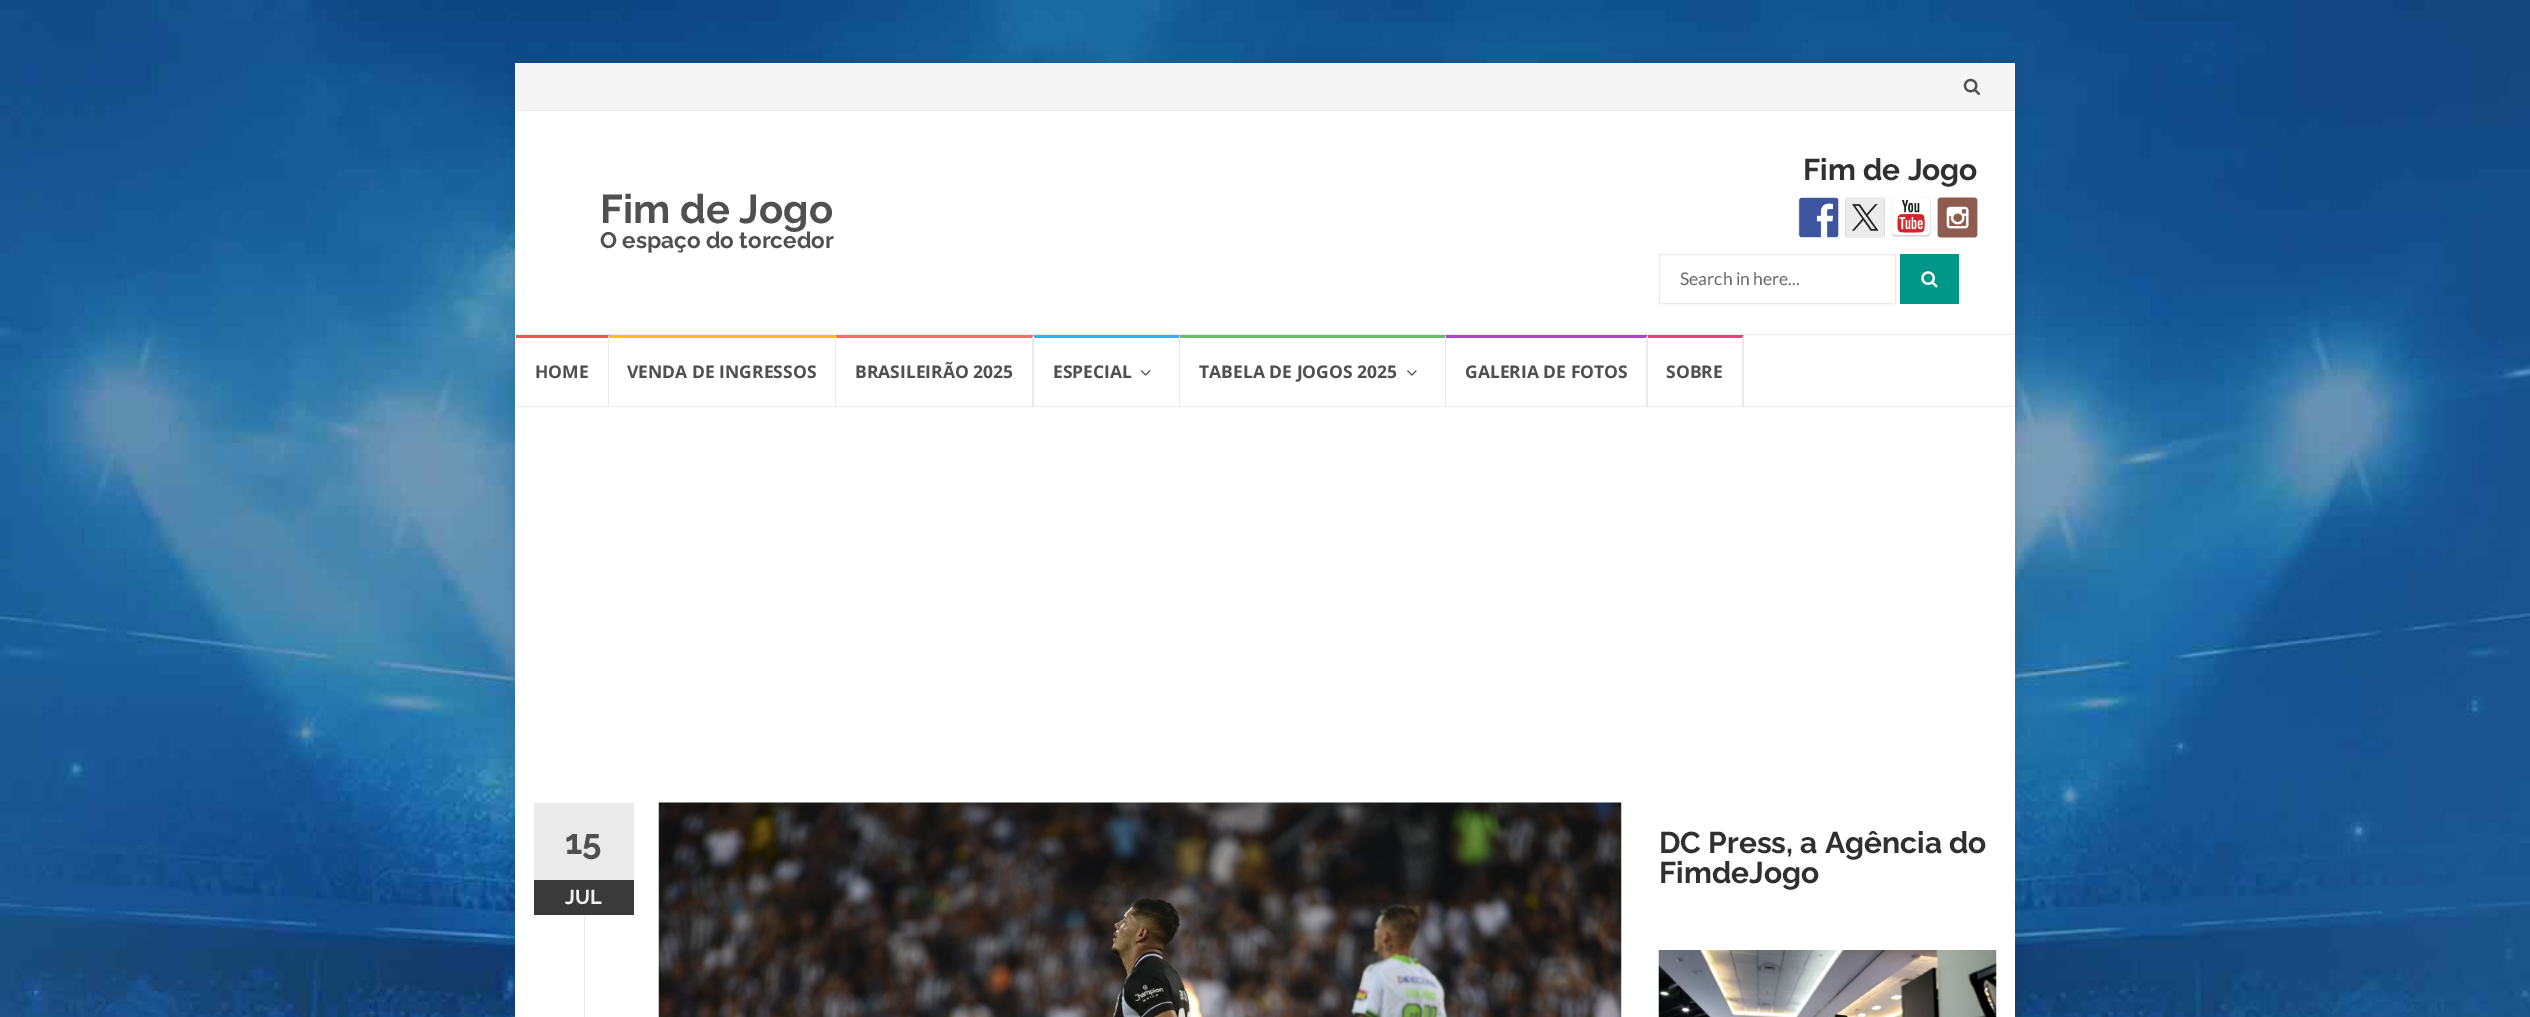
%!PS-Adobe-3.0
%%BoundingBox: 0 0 2530 1017
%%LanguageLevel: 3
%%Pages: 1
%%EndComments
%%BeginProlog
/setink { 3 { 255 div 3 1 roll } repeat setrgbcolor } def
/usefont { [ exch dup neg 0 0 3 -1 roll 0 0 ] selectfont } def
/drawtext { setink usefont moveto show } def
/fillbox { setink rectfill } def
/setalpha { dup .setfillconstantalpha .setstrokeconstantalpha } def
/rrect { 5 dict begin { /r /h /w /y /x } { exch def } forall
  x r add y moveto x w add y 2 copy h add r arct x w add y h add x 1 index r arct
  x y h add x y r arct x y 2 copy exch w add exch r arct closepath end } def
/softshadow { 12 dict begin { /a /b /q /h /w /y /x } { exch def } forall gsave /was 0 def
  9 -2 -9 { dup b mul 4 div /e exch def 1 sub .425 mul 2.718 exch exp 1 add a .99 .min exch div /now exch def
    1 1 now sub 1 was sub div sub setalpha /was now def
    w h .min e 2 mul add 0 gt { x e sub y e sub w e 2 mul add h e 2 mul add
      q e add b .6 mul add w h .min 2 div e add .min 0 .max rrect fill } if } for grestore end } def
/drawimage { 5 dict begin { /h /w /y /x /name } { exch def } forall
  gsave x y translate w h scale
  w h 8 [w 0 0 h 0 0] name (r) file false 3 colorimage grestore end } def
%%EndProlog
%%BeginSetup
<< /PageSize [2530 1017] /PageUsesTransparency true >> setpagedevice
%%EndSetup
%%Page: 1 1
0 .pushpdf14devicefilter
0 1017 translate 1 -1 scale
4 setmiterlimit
0 0 2530 1017 255 255 255 fillbox
(assets/img1.rgb) 0 0 2530 1017 drawimage
0 0 0 setink
515 63 1500 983 0 9.5 0.1 softshadow
515 111 1500 906 255 255 255 fillbox
515 63 1500 47 245 245 245 fillbox
515 110 1500 1 234 234 234 fillbox
(assets/img2.rgb) 1963 78 17 17 drawimage
(Fim de Jogo) 600 223 /Raleway-Bold 40 80 80 80 drawtext
(O espaço do torcedor) 600 248 /Raleway-Bold 22.5 80 80 80 drawtext
(Fim de Jogo) 1803 180 /Raleway-Bold 30 48 48 48 drawtext
(assets/img3.rgb) 1798 197 41 41 drawimage
(assets/img4.rgb) 1845 197 40 41 drawimage
(assets/img5.rgb) 1891 197 40 41 drawimage
(assets/img6.rgb) 1937 197 41 41 drawimage
234 234 234 setink
1659.5 254.5 236 49 rectstroke
(Search in here...) 1680 285 /Lato-Regular 17.5 106 106 106 drawtext
1900 254 59 50 0 150 136 fillbox
(assets/img7.rgb) 1921 271 17 17 drawimage
516 334 1498 1 234 234 234 fillbox
516 406 1498 1 234 234 234 fillbox
239 83 80 setink
516 335 moveto 609 335 lineto 608 338 lineto 516 338 lineto closepath fill
234 234 234 setink
609 335 moveto 609 406 lineto 608 406 lineto 608 338 lineto closepath fill
(HOME) 535 378 /OpenSans-Bold 17.5 80 80 80 drawtext
255 193 7 setink
609 335 moveto 836 335 lineto 835 338 lineto 609 338 lineto closepath fill
234 234 234 setink
836 335 moveto 836 406 lineto 835 406 lineto 835 338 lineto closepath fill
(VENDA DE INGRESSOS) 627 378 /OpenSans-Bold 17.5 80 80 80 drawtext
255 107 107 setink
836 335 moveto 1034 335 lineto 1032 338 lineto 836 338 lineto closepath fill
234 234 234 setink
1034 335 moveto 1034 406 lineto 1032 406 lineto 1032 338 lineto closepath fill
(BRASILEIRÃO 2025) 855 378 /OpenSans-Bold 17.5 80 80 80 drawtext
41 182 246 setink
1034 335 moveto 1180 335 lineto 1179 338 lineto 1034 338 lineto closepath fill
234 234 234 setink
1180 335 moveto 1180 406 lineto 1179 406 lineto 1179 338 lineto closepath fill
(ESPECIAL) 1053 378 /OpenSans-Bold 17.5 80 80 80 drawtext
(assets/img8.rgb) 1140 370 11 6 drawimage
102 187 106 setink
1180 335 moveto 1446 335 lineto 1445 338 lineto 1180 338 lineto closepath fill
234 234 234 setink
1446 335 moveto 1446 406 lineto 1445 406 lineto 1445 338 lineto closepath fill
(TABELA DE JOGOS 2025) 1199 378 /OpenSans-Bold 17.5 80 80 80 drawtext
(assets/img9.rgb) 1407 370 10 6 drawimage
171 71 188 setink
1446 335 moveto 1648 335 lineto 1646 338 lineto 1446 338 lineto closepath fill
234 234 234 setink
1648 335 moveto 1648 406 lineto 1646 406 lineto 1646 338 lineto closepath fill
(GALERIA DE FOTOS) 1465 378 /OpenSans-Bold 17.5 80 80 80 drawtext
236 64 122 setink
1648 335 moveto 1744 335 lineto 1742 338 lineto 1648 338 lineto closepath fill
234 234 234 setink
1744 335 moveto 1744 406 lineto 1742 406 lineto 1742 338 lineto closepath fill
(SOBRE) 1666 378 /OpenSans-Bold 17.5 80 80 80 drawtext
534 803 100 77 234 234 234 fillbox
(15) 565 854 /Raleway-Bold 35 80 80 80 drawtext
534 880 100 35 58 58 58 fillbox
(JUL) 565 904 /Raleway-Bold 20 241 241 241 drawtext
(assets/img10.rgb) 658 802 964 215 drawimage
584 915 1 102 234 234 234 fillbox
(DC Press, a Agência do) 1659 853 /Raleway-Bold 30 48 48 48 drawtext
(FimdeJogo) 1659 883 /Raleway-Bold 30 48 48 48 drawtext
(assets/img11.rgb) 1658 950 339 67 drawimage
.poppdf14devicefilter showpage
%%EOF
